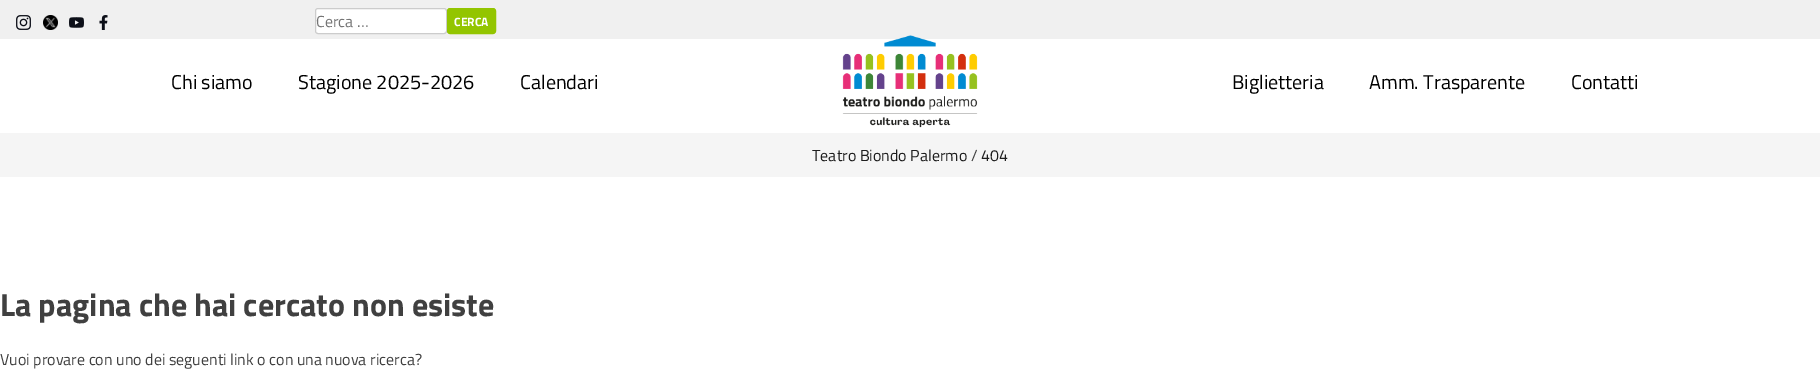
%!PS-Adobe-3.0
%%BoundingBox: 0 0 1820 374
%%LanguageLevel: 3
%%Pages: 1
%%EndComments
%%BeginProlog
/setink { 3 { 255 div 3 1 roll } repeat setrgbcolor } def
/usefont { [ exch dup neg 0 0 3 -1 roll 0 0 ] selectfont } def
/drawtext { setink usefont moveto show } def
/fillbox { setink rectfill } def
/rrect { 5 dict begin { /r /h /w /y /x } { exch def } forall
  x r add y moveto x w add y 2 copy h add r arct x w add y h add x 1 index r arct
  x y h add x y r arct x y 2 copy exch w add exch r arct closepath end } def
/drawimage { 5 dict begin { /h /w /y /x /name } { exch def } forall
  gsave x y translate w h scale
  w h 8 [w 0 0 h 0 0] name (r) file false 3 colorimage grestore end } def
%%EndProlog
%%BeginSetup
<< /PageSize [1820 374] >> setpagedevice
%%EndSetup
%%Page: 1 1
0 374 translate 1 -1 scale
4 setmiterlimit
0 0 1820 374 255 255 255 fillbox
0 0 1820 39 240 240 240 fillbox
(assets/img1.rgb) 16 15 15 15 drawimage
(assets/img2.rgb) 43 15 15 15 drawimage
(assets/img3.rgb) 69 17 15 11 drawimage
(assets/img4.rgb) 99 15 9 15 drawimage
255 255 255 setink
315.5 8.5 131 25 2.5 rrect gsave fill grestore
204 204 204 setink
stroke
(Cerca …) 316 27 /TitilliumWeb-Regular 16 117 117 117 drawtext
147 197 0 setink
447.5 8.5 48 25 2.5 rrect gsave fill grestore
stroke
(CERCA) 454 26 /TitilliumWeb-Bold 12 255 255 255 drawtext
(Chi siamo) 171 89 /TitilliumWeb-Regular 20 0 0 0 drawtext
(Stagione 2025-2026) 298 89 /TitilliumWeb-Regular 20 0 0 0 drawtext
(Calendari) 520 89 /TitilliumWeb-Regular 20 0 0 0 drawtext
(assets/img5.rgb) 842 35 136 93 drawimage
(Biglietteria) 1232 89 /TitilliumWeb-Regular 20 0 0 0 drawtext
(Amm. Trasparente) 1369 89 /TitilliumWeb-Regular 20 0 0 0 drawtext
(Contatti) 1571 89 /TitilliumWeb-Regular 20 0 0 0 drawtext
0 133 1820 44 245 245 245 fillbox
(Teatro Biondo Palermo) 812 161 /TitilliumWeb-Regular 16 30 30 30 drawtext
(/) 971 161 /TitilliumWeb-Regular 16 64 64 64 drawtext
(404) 981 161 /TitilliumWeb-Regular 16 30 30 30 drawtext
(La pagina che hai cercato non esiste) 0 316 /TitilliumWeb-Bold 32 64 64 64 drawtext
(Vuoi provare con uno dei seguenti link o con una nuova ricerca?) 0 365 /TitilliumWeb-Regular 16 64 64 64 drawtext
showpage
%%EOF
